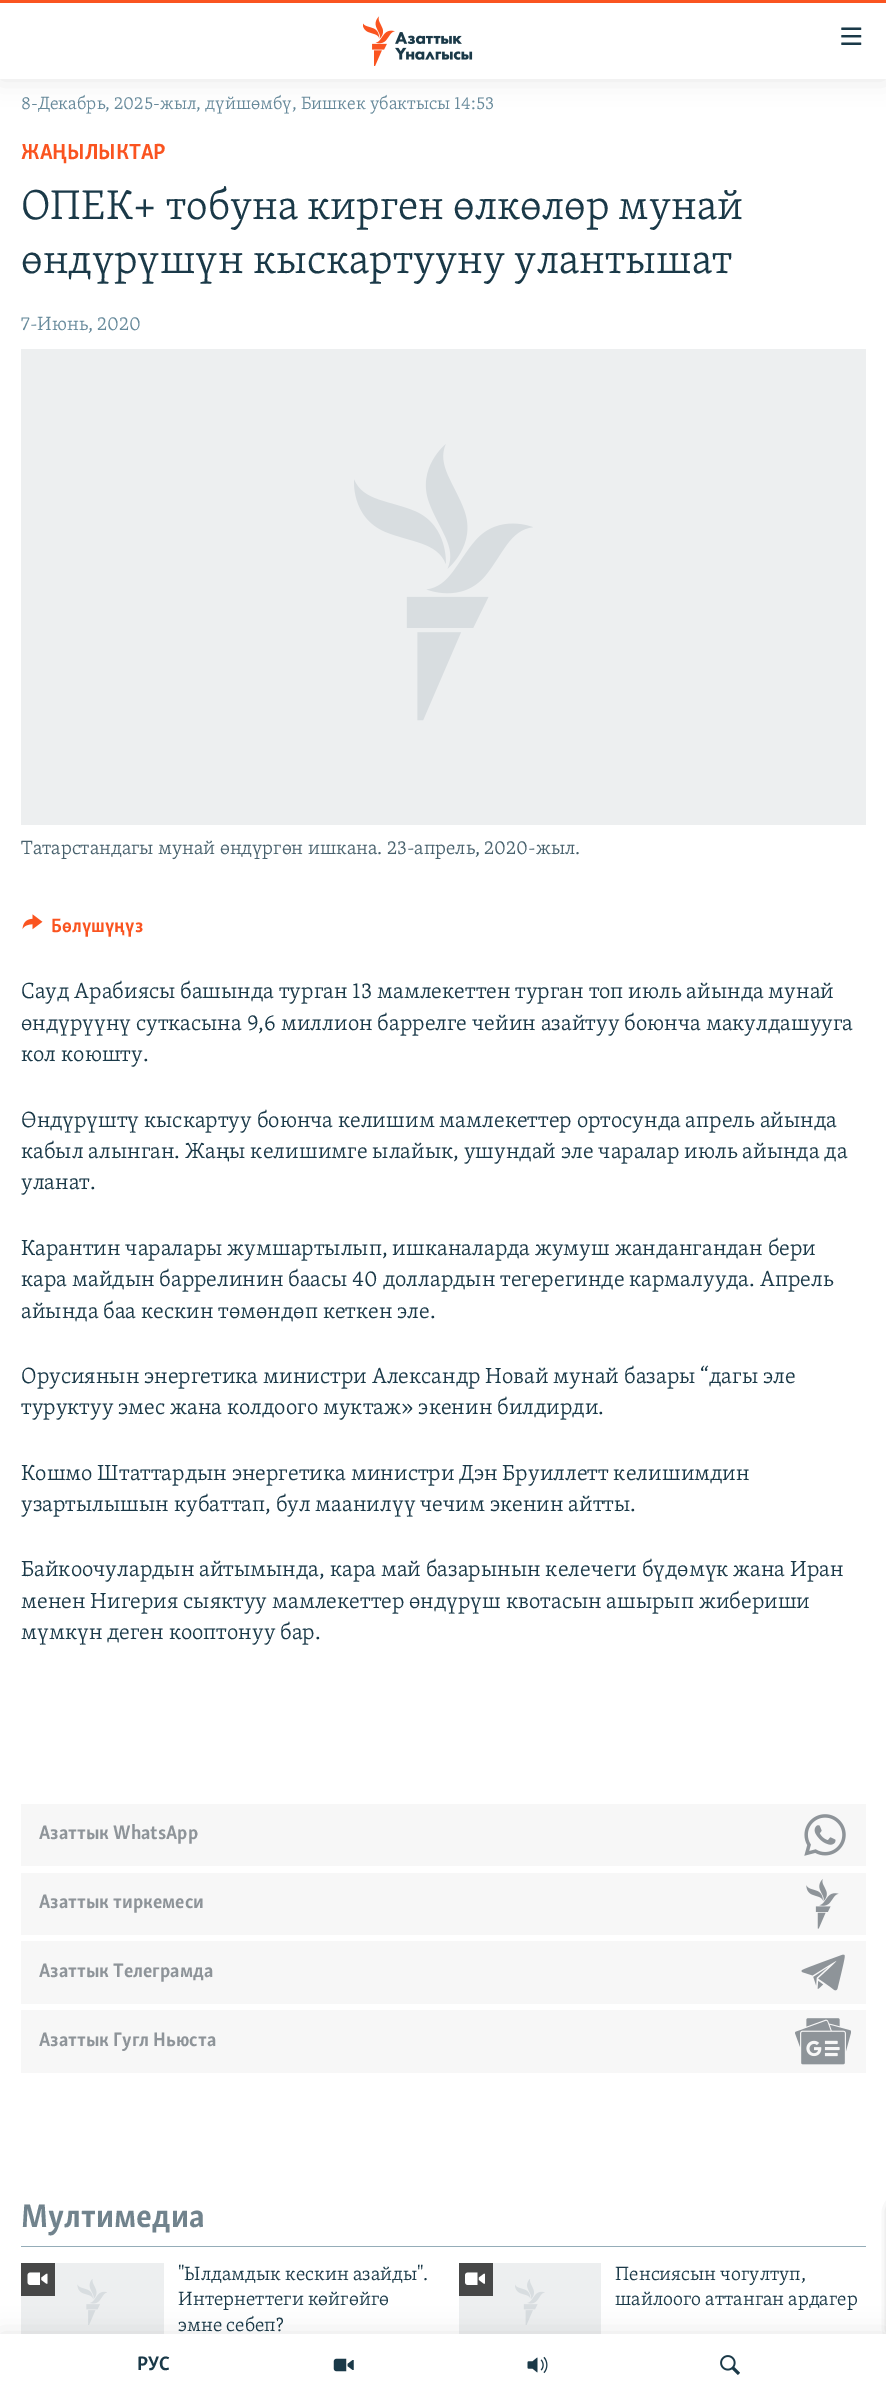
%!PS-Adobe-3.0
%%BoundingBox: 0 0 886 2396
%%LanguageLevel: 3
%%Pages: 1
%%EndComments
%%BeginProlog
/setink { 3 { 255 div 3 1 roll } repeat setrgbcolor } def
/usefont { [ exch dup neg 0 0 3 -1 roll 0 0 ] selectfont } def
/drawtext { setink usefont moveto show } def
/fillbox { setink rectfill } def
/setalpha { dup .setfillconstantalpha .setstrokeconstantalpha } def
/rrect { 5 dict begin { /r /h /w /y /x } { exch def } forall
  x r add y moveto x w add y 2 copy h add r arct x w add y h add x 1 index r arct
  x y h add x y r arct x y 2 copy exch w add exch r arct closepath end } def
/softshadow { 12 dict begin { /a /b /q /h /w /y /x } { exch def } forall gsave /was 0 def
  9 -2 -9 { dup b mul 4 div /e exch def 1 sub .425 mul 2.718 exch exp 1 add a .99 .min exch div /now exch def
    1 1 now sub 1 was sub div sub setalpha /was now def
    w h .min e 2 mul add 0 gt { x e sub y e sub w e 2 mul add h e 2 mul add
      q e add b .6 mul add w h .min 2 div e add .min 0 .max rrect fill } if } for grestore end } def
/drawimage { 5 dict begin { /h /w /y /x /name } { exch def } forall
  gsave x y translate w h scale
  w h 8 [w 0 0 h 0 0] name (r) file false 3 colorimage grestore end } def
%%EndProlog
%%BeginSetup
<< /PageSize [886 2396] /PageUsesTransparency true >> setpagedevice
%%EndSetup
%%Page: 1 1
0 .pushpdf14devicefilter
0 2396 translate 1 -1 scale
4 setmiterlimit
0 0 886 2396 255 255 255 fillbox
(8-Декабрь, 2025-жыл, дүйшөмбү, Бишкек убактысы 14:53) 21 109 /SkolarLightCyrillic-Light 18.25 103 138 155 drawtext
(ЖАҢЫЛЫКТАР) 21 159 /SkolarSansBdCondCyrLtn-Bold 22.5 250 84 32 drawtext
(ОПЕК+ тобуна кирген өлкөлөр мунай) 21 219 /SkolarLightCyrillic-Light 42.75 26 57 72 drawtext
(өндүрүшүн кыскартууну улантышат) 21 273 /SkolarLightCyrillic-Light 42.75 26 57 72 drawtext
(7-Июнь, 2020) 21 330 /SkolarLightCyrillic-Light 19.7 103 138 155 drawtext
21 349 845 476 237 239 240 fillbox
(assets/img1.rgb) 354 444 179 277 drawimage
(Татарстандагы мунай өндүргөн ишкана. 23-апрель, 2020-жыл.) 21 854 /SkolarLightCyrillic-Light 19.7 72 97 109 drawtext
(assets/img2.rgb) 22 914 21 16 drawimage
(Бөлүшүңүз) 51 932 /SkolarSansBdCondCyrLtn-Bold 19.7 250 84 32 drawtext
(Сауд Арабиясы башында турган 13 мамлекеттен турган топ июль айында мунай) 21 998 /SkolarLightCyrillic-Light 22.5 26 57 72 drawtext
(өндүрүүнү суткасына 9,6 миллион баррелге чейин азайтуу боюнча макулдашууга) 21 1030 /SkolarLightCyrillic-Light 22.5 26 57 72 drawtext
(кол коюшту.) 21 1061 /SkolarLightCyrillic-Light 22.5 26 57 72 drawtext
(Өндүрүштү кыскартуу боюнча келишим мамлекеттер ортосунда апрель айында) 21 1127 /SkolarLightCyrillic-Light 22.5 26 57 72 drawtext
(кабыл алынган. Жаңы келишимге ылайык, ушундай эле чаралар июль айында да) 21 1158 /SkolarLightCyrillic-Light 22.5 26 57 72 drawtext
(уланат.) 21 1189 /SkolarLightCyrillic-Light 22.5 26 57 72 drawtext
(Карантин чаралары жумшартылып, ишканаларда жумуш жандангандан бери) 21 1255 /SkolarLightCyrillic-Light 22.5 26 57 72 drawtext
(кара майдын баррелинин баасы 40 доллардын тегерегинде кармалууда. Апрель) 21 1286 /SkolarLightCyrillic-Light 22.5 26 57 72 drawtext
(айында баа кескин төмөндөп кеткен эле.) 21 1318 /SkolarLightCyrillic-Light 22.5 26 57 72 drawtext
(Орусиянын энергетика министри Александр Новай мунай базары “дагы эле) 21 1383 /SkolarLightCyrillic-Light 22.5 26 57 72 drawtext
(туруктуу эмес жана колдоого муктаж» экенин билдирди.) 21 1414 /SkolarLightCyrillic-Light 22.5 26 57 72 drawtext
(Кошмо Штаттардын энергетика министри Дэн Бруиллетт келишимдин) 21 1480 /SkolarLightCyrillic-Light 22.5 26 57 72 drawtext
(узартылышын кубаттап, бул маанилүү чечим экенин айтты.) 21 1511 /SkolarLightCyrillic-Light 22.5 26 57 72 drawtext
(Байкоочулардын айтымында, кара май базарынын келечеги бүдөмүк жана Иран) 21 1576 /SkolarLightCyrillic-Light 22.5 26 57 72 drawtext
(менен Нигерия сыяктуу мамлекеттер өндүрүш квотасын ашырып жибериши) 21 1608 /SkolarLightCyrillic-Light 22.5 26 57 72 drawtext
(мүмкүн деген кооптонуу бар.) 21 1639 /SkolarLightCyrillic-Light 22.5 26 57 72 drawtext
21 1804 845 62 247 247 247 fillbox
(Азаттык WhatsApp) 39 1839 /SkolarSansBdCondCyrLtn-Bold 20 142 148 153 drawtext
(assets/img3.rgb) 804 1814 42 42 drawimage
21 1873 845 62 247 247 247 fillbox
(Азаттык тиркемеси) 39 1908 /SkolarSansBdCondCyrLtn-Bold 20 142 148 153 drawtext
(assets/img4.rgb) 806 1879 33 50 drawimage
21 1941 845 63 247 247 247 fillbox
(Азаттык Телеграмда) 39 1977 /SkolarSansBdCondCyrLtn-Bold 20 142 148 153 drawtext
(assets/img5.rgb) 801 1954 44 37 drawimage
21 2010 845 63 247 247 247 fillbox
(Азаттык Гугл Ньюста) 39 2046 /SkolarSansBdCondCyrLtn-Bold 20 142 148 153 drawtext
(assets/img6.rgb) 795 2018 56 47 drawimage
21 2246 845 1 149 173 185 fillbox
(Мултимедиа) 21 2227 /SkolarSansBdCondCyrLtn-Bold 33.75 113 131 141 drawtext
21 2263 143 71 237 239 240 fillbox
(assets/img7.rgb) 77 2279 30 46 drawimage
21 2263 34 33 71 72 72 fillbox
(assets/img8.rgb) 27 2272 21 13 drawimage
("Ылдамдык кескин азайды".) 178 2280 /SkolarLightCyrillic-Light 19.7 26 57 72 drawtext
(Интернеттеги көйгөйгө) 178 2305 /SkolarLightCyrillic-Light 19.7 26 57 72 drawtext
(эмне себеп?) 178 2331 /SkolarLightCyrillic-Light 19.7 26 57 72 drawtext
459 2263 142 71 237 239 240 fillbox
(assets/img9.rgb) 515 2279 30 46 drawimage
459 2263 34 33 71 72 72 fillbox
(assets/img10.rgb) 465 2272 20 13 drawimage
(Пенсиясын чогултуп,) 615 2280 /SkolarLightCyrillic-Light 19.7 26 57 72 drawtext
(шайлоого аттанган ардагер) 615 2305 /SkolarLightCyrillic-Light 19.7 26 57 72 drawtext
0 0 0 setink
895 2206 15 128 6 6 0.85 softshadow
0 0 886 79 0 12.5 0.1 softshadow
0 3 886 76 255 255 255 fillbox
0 0 886 3 250 84 32 fillbox
(assets/img11.rgb) 363 16 110 50 drawimage
(assets/img12.rgb) 841 27 21 18 drawimage
0 0 0 setink
0 2334 886 62 0 12.5 0.1 softshadow
0 2334 886 62 255 255 255 fillbox
(РУС) 137 2370 /SkolarSansBdCondCyrLtn-Bold 20 26 57 72 drawtext
(assets/img13.rgb) 333 2358 21 14 drawimage
(assets/img14.rgb) 527 2356 21 18 drawimage
(assets/img15.rgb) 720 2355 20 20 drawimage
.poppdf14devicefilter showpage
%%EOF
